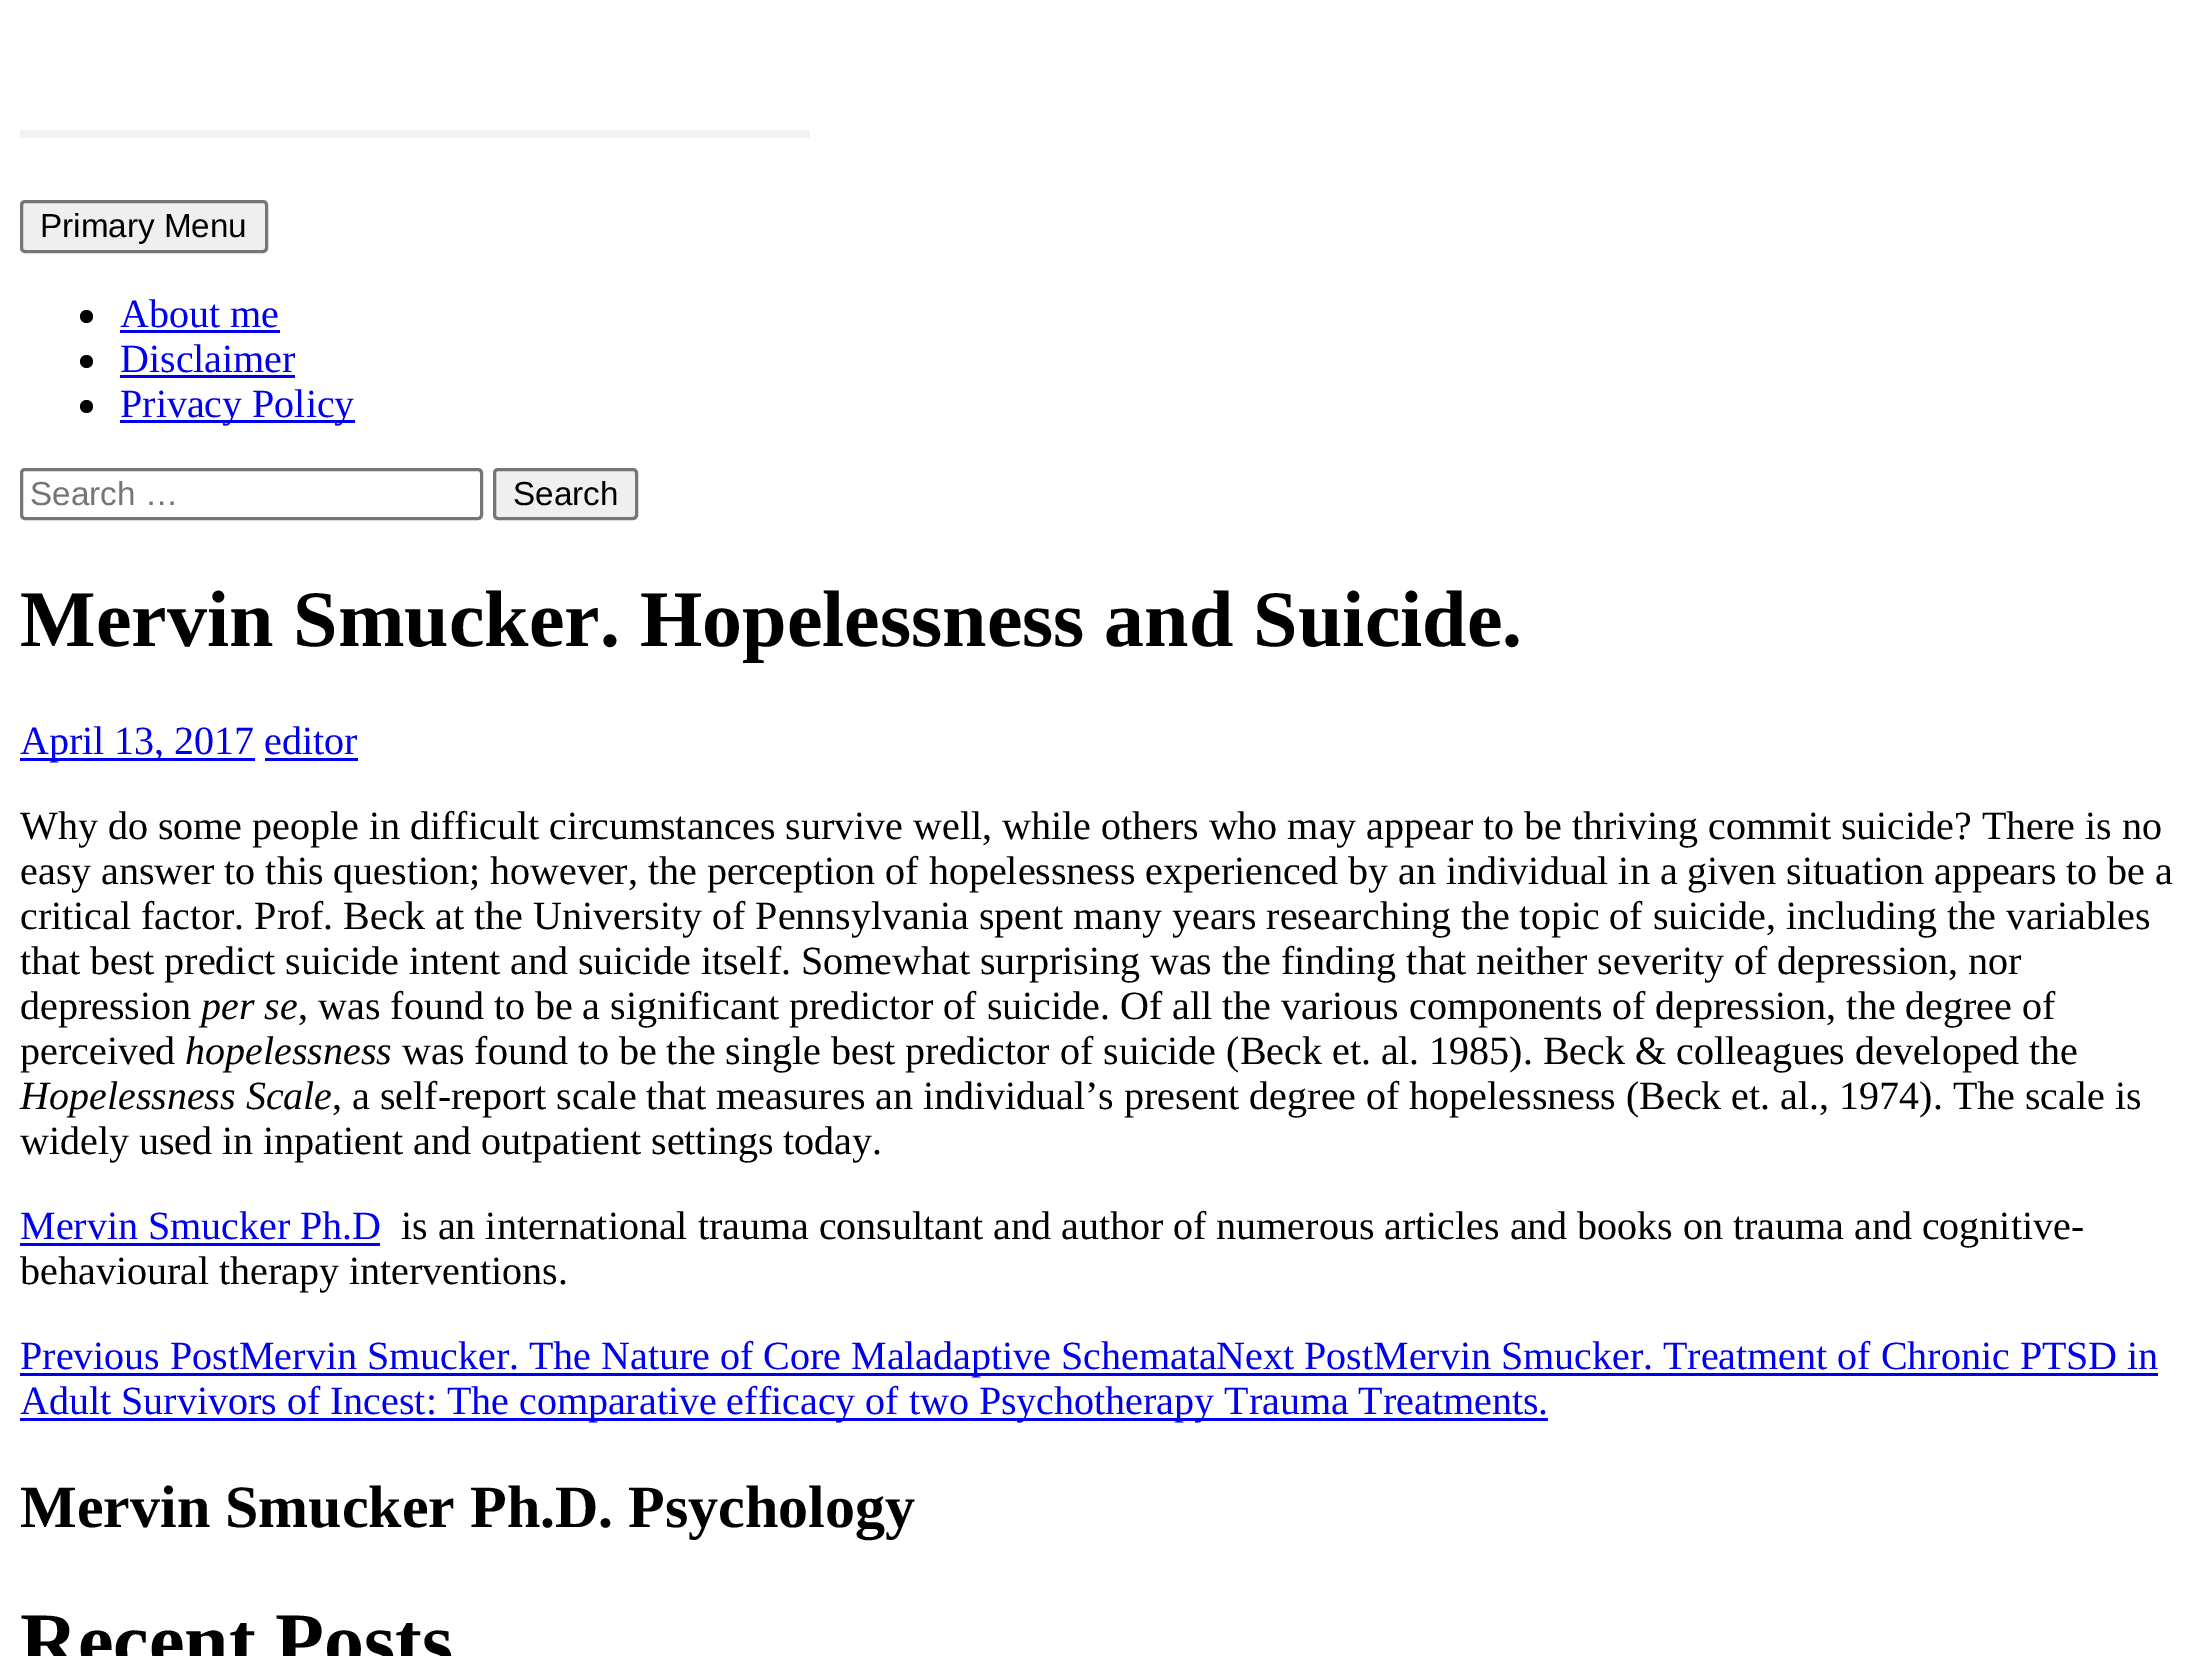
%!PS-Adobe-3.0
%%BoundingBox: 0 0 2194 1656
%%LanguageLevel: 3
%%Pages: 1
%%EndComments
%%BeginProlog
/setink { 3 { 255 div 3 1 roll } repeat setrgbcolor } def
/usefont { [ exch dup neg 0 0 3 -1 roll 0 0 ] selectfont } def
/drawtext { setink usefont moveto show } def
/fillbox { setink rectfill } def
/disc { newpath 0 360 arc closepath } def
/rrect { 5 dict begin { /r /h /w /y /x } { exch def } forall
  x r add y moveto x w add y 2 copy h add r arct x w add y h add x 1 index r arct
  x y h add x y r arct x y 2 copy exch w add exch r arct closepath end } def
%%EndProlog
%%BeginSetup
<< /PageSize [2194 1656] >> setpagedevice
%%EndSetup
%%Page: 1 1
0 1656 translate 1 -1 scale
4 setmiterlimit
0 0 2194 1656 255 255 255 fillbox
20 130 790 8 242 242 242 fillbox
239 239 239 setink
21.5 201.5 245 50 3.5 rrect gsave fill grestore
118 118 118 setink
3 setlinewidth
stroke
(Primary Menu) 40 237 /LiberationSans-Regular 33.25 0 0 0 drawtext
86.5 316.5 6.5 disc fill
(About me) 120 327 /LiberationSerif-Regular 40 0 0 238 drawtext
120 330 160 3 0 0 238 fillbox
0 0 0 setink
86.5 361.5 6.5 disc fill
(Disclaimer) 120 372 /LiberationSerif-Regular 40 0 0 238 drawtext
120 375 175 3 0 0 238 fillbox
0 0 0 setink
86.5 406.5 6.5 disc fill
120 420 235 3 0 0 238 fillbox
(Privacy Policy) 120 417 /LiberationSerif-Regular 40 0 0 238 drawtext
118 118 118 setink
21.5 469.5 460 49 3.5 rrect stroke
(Search …) 30 505 /LiberationSans-Regular 33.25 117 117 117 drawtext
239 239 239 setink
494.5 469.5 142 49 3.5 rrect gsave fill grestore
118 118 118 setink
stroke
(Search) 513 505 /LiberationSans-Regular 33.25 0 0 0 drawtext
(Mervin Smucker. Hopelessness and Suicide.) 20 646 /LiberationSerif-Bold 80 0 0 0 drawtext
20 758 235 3 0 0 238 fillbox
(April 13, 2017 editor) 20 754 /LiberationSerif-Regular 40 0 0 238 drawtext
265 758 93 3 0 0 238 fillbox
(Why do some people in difficult circumstances survive well, while others who may appear to be thriving commit suicide? There is no) 20 839 /LiberationSerif-Regular 40 0 0 0 drawtext
(easy answer to this question; however, the perception of hopelessness experienced by an individual in a given situation appears to be a) 20 884 /LiberationSerif-Regular 40 0 0 0 drawtext
(critical factor. Prof. Beck at the University of Pennsylvania spent many years researching the topic of suicide, including the variables) 20 929 /LiberationSerif-Regular 40 0 0 0 drawtext
(that best predict suicide intent and suicide itself. Somewhat surprising was the finding that neither severity of depression, nor) 20 974 /LiberationSerif-Regular 40 0 0 0 drawtext
(depression) 20 1019 /LiberationSerif-Regular 40 0 0 0 drawtext
(per se) 201 1019 /LiberationSerif-Italic 40 0 0 0 drawtext
(, was found to be a significant predictor of suicide. Of all the various components of depression, the degree of) 298 1019 /LiberationSerif-Regular 40 0 0 0 drawtext
(perceived) 20 1064 /LiberationSerif-Regular 40 0 0 0 drawtext
(hopelessness) 185 1064 /LiberationSerif-Italic 40 0 0 0 drawtext
(was found to be the single best predictor of suicide \(Beck et. al. 1985\). Beck & colleagues developed the) 402 1064 /LiberationSerif-Regular 40 0 0 0 drawtext
(Hopelessness Scale) 20 1109 /LiberationSerif-Italic 40 0 0 0 drawtext
(, a self-report scale that measures an individual’s present degree of hopelessness \(Beck et. al., 1974\). The scale is) 332 1109 /LiberationSerif-Regular 40 0 0 0 drawtext
(widely used in inpatient and outpatient settings today.) 20 1154 /LiberationSerif-Regular 40 0 0 0 drawtext
(Mervin Smucker Ph.D) 20 1239 /LiberationSerif-Regular 40 0 0 238 drawtext
20 1243 360 3 0 0 238 fillbox
(is an international trauma consultant and author of numerous articles and books on trauma and cognitive-) 401 1239 /LiberationSerif-Regular 40 0 0 0 drawtext
(behavioural therapy interventions.) 20 1284 /LiberationSerif-Regular 40 0 0 0 drawtext
20 1373 2138 3 0 0 238 fillbox
(Previous PostMervin Smucker. The Nature of Core Maladaptive SchemataNext PostMervin Smucker. Treatment of Chronic PTSD in) 20 1369 /LiberationSerif-Regular 40 0 0 238 drawtext
20 1418 1528 3 0 0 238 fillbox
(Adult Survivors of Incest: The comparative efficacy of two Psychotherapy Trauma Treatments.) 20 1414 /LiberationSerif-Regular 40 0 0 238 drawtext
(Mervin Smucker Ph.D. Psychology) 20 1527 /LiberationSerif-Bold 60 0 0 0 drawtext
(Recent Posts) 20 1668 /LiberationSerif-Bold 80 0 0 0 drawtext
showpage
%%EOF
